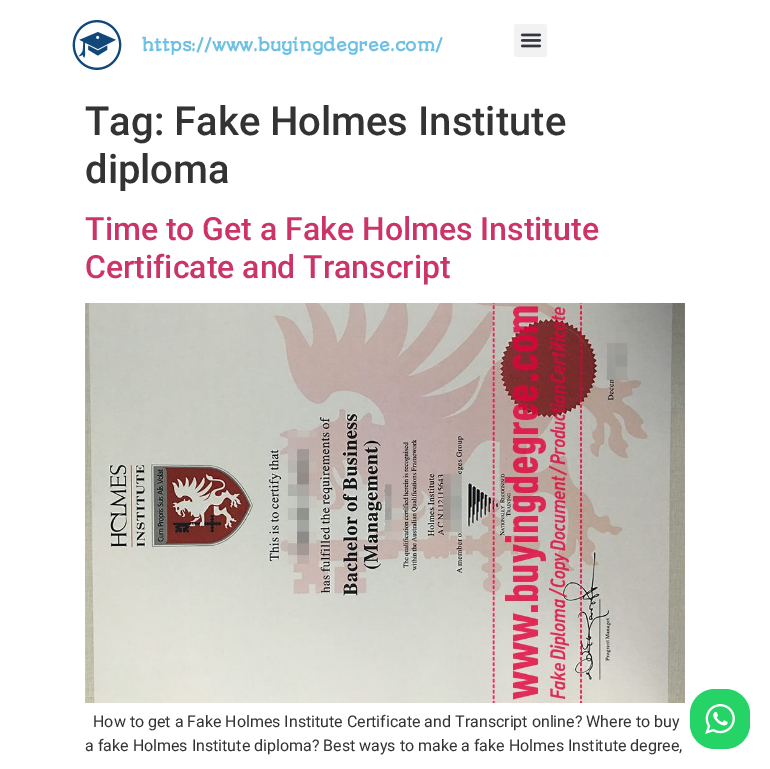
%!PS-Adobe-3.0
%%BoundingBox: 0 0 770 769
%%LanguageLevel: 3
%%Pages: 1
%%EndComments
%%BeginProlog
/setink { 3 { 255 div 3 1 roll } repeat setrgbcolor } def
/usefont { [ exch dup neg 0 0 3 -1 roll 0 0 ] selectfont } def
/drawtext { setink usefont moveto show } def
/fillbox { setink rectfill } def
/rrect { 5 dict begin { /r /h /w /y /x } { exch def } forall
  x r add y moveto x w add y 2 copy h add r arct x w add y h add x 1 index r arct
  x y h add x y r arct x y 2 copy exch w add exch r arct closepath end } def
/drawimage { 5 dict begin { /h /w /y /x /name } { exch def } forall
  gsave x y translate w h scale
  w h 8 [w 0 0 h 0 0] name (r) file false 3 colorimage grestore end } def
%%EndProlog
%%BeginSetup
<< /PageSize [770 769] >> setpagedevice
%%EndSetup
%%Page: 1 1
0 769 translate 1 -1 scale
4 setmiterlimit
0 0 770 769 255 255 255 fillbox
(assets/img1.rgb) 72 20 50 50 drawimage
(https://www.buyingdegree.com/) 142 51 /AutourOne-Bold 16 110 193 228 drawtext
242 242 242 setink
514 24 33 33 3 rrect fill
(assets/img2.rgb) 520 33 22 15 drawimage
(Tag: Fake Holmes Institute) 85 135 /Roboto-Medium 40 51 51 51 drawtext
(diploma) 85 183 /Roboto-Medium 40 51 51 51 drawtext
(Time to Get a Fake Holmes Institute) 85 240 /Roboto-Medium 32 204 51 102 drawtext
(Certificate and Transcript) 85 278 /Roboto-Medium 32 204 51 102 drawtext
(assets/img3.rgb) 85 303 600 400 drawimage
(How to get a Fake Holmes Institute Certificate and Transcript online? Where to buy) 93 727 /Roboto-Regular 16 51 51 51 drawtext
(a fake Holmes Institute diploma? Best ways to make a fake Holmes Institute degree,) 85 751 /Roboto-Regular 16 51 51 51 drawtext
37 211 102 setink
690 689 60 60 25 rrect fill
(assets/img4.rgb) 705 704 30 30 drawimage
showpage
%%EOF
